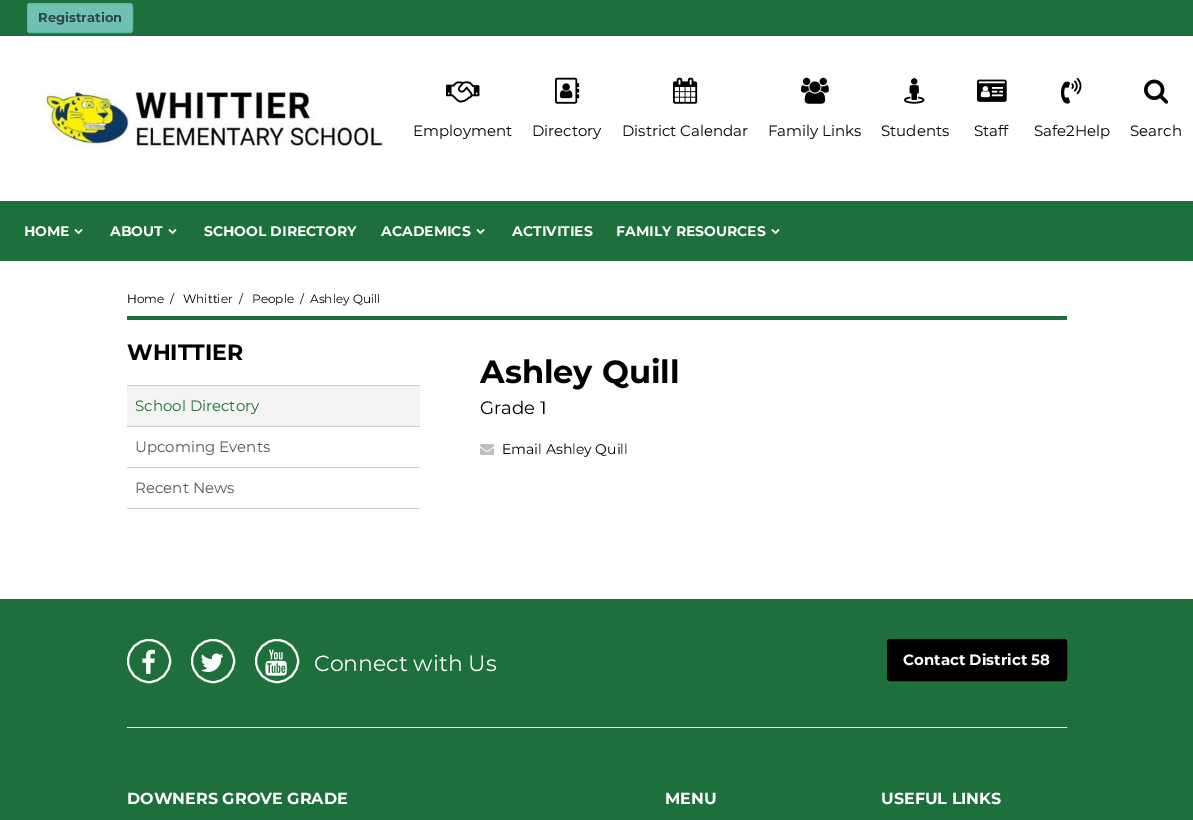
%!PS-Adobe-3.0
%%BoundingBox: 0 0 1193 820
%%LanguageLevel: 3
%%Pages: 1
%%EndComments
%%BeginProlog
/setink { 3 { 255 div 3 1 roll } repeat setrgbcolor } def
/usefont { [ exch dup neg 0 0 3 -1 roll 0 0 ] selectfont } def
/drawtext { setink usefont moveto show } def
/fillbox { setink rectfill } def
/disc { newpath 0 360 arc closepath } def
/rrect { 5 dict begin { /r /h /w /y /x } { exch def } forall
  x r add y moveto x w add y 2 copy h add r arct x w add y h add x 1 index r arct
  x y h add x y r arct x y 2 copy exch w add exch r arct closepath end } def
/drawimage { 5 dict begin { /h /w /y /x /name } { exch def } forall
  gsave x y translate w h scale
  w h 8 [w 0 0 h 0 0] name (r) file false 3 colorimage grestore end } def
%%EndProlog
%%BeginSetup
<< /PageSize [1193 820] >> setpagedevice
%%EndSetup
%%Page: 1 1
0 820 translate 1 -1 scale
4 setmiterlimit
0 0 1193 820 255 255 255 fillbox
0 0 1193 36 29 111 59 fillbox
112 193 179 setink
27.5 3.5 105 29 2.5 rrect gsave fill grestore
94 185 170 setink
stroke
(Registration) 38 22 /Montserrat-Bold 13 41 74 68 drawtext
(assets/img1.rgb) 39 86 348 62 drawimage
(assets/img2.rgb) 446 81 34 22 drawimage
(Employment) 413 136 /Montserrat-Regular 15 0 0 0 drawtext
(assets/img3.rgb) 555 77 25 27 drawimage
(Directory) 532 136 /Montserrat-Regular 15 0 0 0 drawtext
(assets/img4.rgb) 673 77 25 27 drawimage
(District Calendar) 622 136 /Montserrat-Regular 15 0 0 0 drawtext
(assets/img5.rgb) 801 77 28 27 drawimage
(Family Links) 768 136 /Montserrat-Regular 15 0 0 0 drawtext
(assets/img6.rgb) 904 78 21 26 drawimage
(Students) 881 136 /Montserrat-Regular 15 0 0 0 drawtext
(assets/img7.rgb) 977 79 30 23 drawimage
(Staff) 974 136 /Montserrat-Regular 15 0 0 0 drawtext
(assets/img8.rgb) 1061 78 21 26 drawimage
(Safe2Help) 1034 136 /Montserrat-Regular 15 0 0 0 drawtext
(assets/img9.rgb) 1144 79 25 25 drawimage
(Search) 1130 136 /Montserrat-Regular 15 0 0 0 drawtext
0 201 1193 60 29 111 59 fillbox
(HOME) 24 236 /Montserrat-Bold 14 255 255 255 drawtext
(assets/img10.rgb) 74 229 9 6 drawimage
(ABOUT) 110 236 /Montserrat-Bold 14 255 255 255 drawtext
(assets/img10.rgb) 168 229 9 6 drawimage
(SCHOOL DIRECTORY) 204 236 /Montserrat-Bold 14 255 255 255 drawtext
(ACADEMICS) 381 236 /Montserrat-Bold 14 255 255 255 drawtext
(assets/img10.rgb) 476 229 9 6 drawimage
(ACTIVITIES) 512 236 /Montserrat-Bold 14 255 255 255 drawtext
(FAMILY RESOURCES) 616 236 /Montserrat-Bold 14 255 255 255 drawtext
(assets/img10.rgb) 771 229 9 6 drawimage
127 316 940 4 29 111 59 fillbox
(Home) 127 303 /Montserrat-Regular 12 0 0 0 drawtext
(/) 170 303 /Montserrat-Regular 12 0 0 0 drawtext
(Whittier) 183 303 /Montserrat-Regular 12 0 0 0 drawtext
(/) 239 303 /Montserrat-Regular 12 0 0 0 drawtext
(People) 252 303 /Montserrat-Regular 12 0 0 0 drawtext
(/) 300 303 /Montserrat-Regular 12 0 0 0 drawtext
(Ashley Quill) 310 303 /Montserrat-Regular 12 0 0 0 drawtext
(WHITTIER) 127 360 /Montserrat-Bold 22 0 0 0 drawtext
127 385 293 1 204 204 204 fillbox
127 426 293 1 204 204 204 fillbox
127 386 293 40 244 244 244 fillbox
(School Directory) 135 411 /Montserrat-Regular 15 29 111 59 drawtext
127 467 293 1 204 204 204 fillbox
(Upcoming Events) 135 452 /Montserrat-Regular 15 85 85 85 drawtext
127 508 293 1 204 204 204 fillbox
(Recent News) 135 493 /Montserrat-Regular 15 85 85 85 drawtext
(Ashley Quill) 480 383 /Montserrat-Bold 32 0 0 0 drawtext
(Grade 1) 480 414 /Montserrat-Regular 18 0 0 0 drawtext
(assets/img11.rgb) 480 444 14 11 drawimage
(Email Ashley Quill) 502 454 /Montserrat-Regular 14 0 0 0 drawtext
0 599 1193 221 29 111 59 fillbox
255 255 255 setink
2 setlinewidth
149 661 21 disc stroke
(assets/img12.rgb) 142 649 13 25 drawimage
213 661 21 disc stroke
(assets/img13.rgb) 200 653 24 19 drawimage
277 661 21 disc stroke
(assets/img14.rgb) 265 649 22 27 drawimage
(Connect with Us) 314 671 /Montserrat-Regular 22 255 255 255 drawtext
0 0 0 setink
887.5 639.5 179 41 2.5 rrect gsave fill grestore
1 setlinewidth
stroke
(Contact District 58) 903 665 /Montserrat-Bold 15 255 255 255 drawtext
127 727 940 1 244 244 244 fillbox
(DOWNERS GROVE GRADE) 127 804 /Montserrat-Bold 16 255 255 255 drawtext
(MENU) 665 804 /Montserrat-Bold 16 255 255 255 drawtext
(USEFUL LINKS) 881 804 /Montserrat-Bold 16 255 255 255 drawtext
showpage
%%EOF
